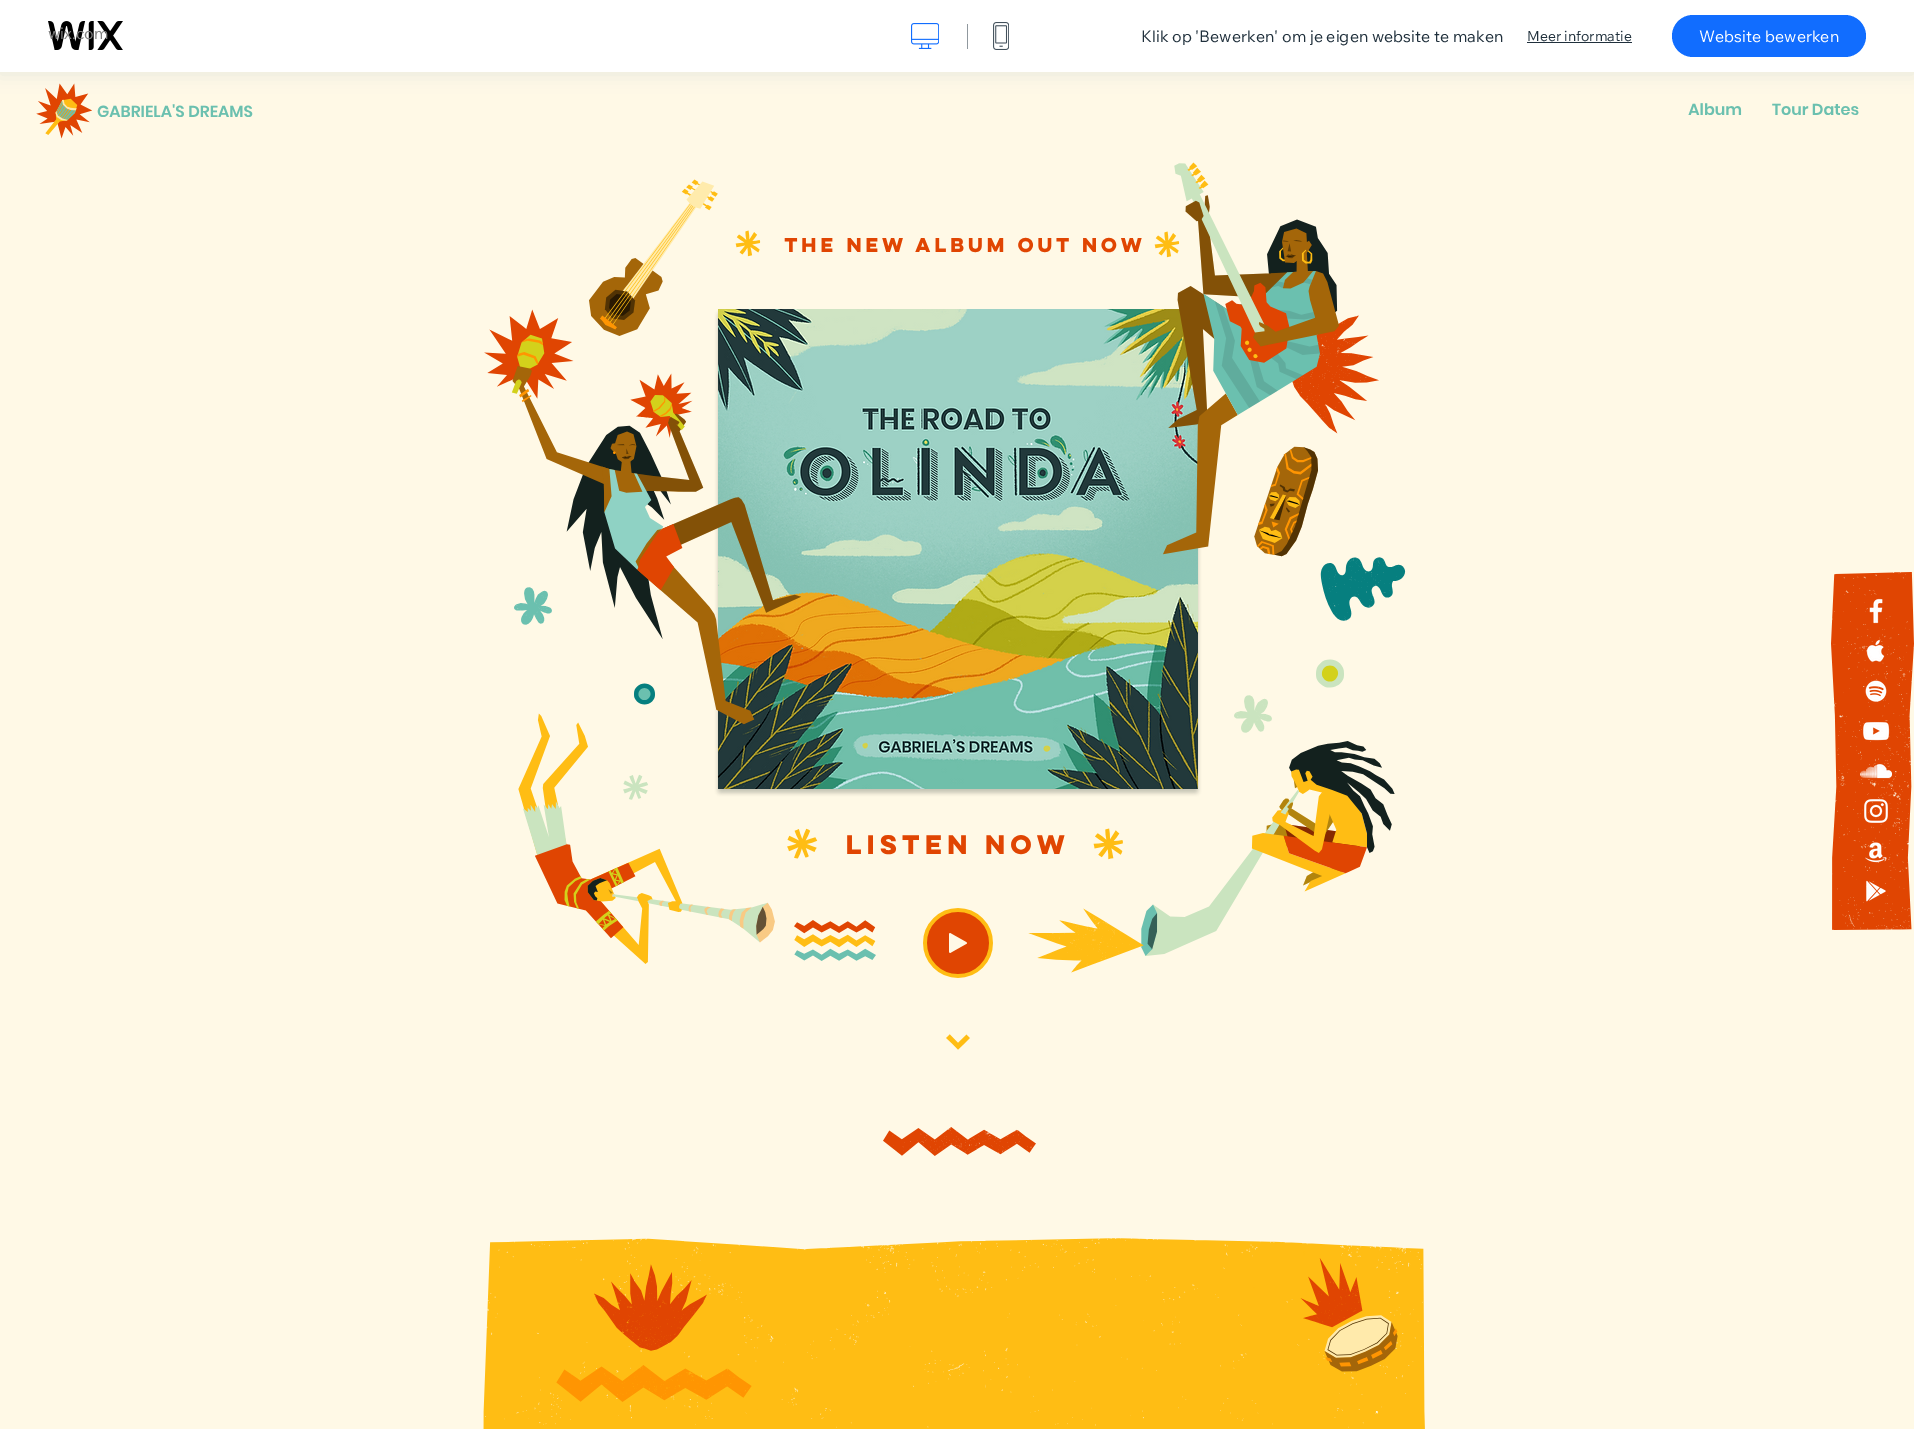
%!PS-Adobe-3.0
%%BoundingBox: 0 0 1914 1429
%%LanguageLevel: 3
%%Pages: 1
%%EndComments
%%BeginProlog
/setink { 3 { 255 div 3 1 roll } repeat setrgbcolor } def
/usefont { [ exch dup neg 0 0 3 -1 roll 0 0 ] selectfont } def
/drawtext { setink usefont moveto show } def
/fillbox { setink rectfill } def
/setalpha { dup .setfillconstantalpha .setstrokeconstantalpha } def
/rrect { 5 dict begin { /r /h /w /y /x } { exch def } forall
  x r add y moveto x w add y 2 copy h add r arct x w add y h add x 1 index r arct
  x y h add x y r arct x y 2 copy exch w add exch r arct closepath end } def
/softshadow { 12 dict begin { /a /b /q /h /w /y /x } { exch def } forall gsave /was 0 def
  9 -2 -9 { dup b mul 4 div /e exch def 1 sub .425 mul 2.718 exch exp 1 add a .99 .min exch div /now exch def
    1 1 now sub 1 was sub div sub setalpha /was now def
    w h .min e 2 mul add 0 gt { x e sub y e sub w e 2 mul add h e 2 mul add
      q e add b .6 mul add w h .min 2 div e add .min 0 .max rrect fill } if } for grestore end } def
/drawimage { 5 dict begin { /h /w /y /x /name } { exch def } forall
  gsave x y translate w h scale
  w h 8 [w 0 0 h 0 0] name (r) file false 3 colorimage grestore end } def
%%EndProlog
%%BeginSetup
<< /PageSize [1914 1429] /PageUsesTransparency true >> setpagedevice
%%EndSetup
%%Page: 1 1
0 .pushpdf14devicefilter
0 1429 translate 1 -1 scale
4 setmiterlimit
0 0 1914 1429 255 255 255 fillbox
(assets/img4.rgb) 0 72 1914 1357 drawimage
129 162 182 setink
0 2 1914 72 0 9 0.2 softshadow
0 0 1914 72 255 255 255 fillbox
(assets/img1.rgb) 48 21 75 29 drawimage
(wix.com) 48 39 /WixMadeforText-Regular 16 128 128 128 drawtext
(assets/img2.rgb) 911 23 28 26 drawimage
967 24 1 25 144 152 158 fillbox
(assets/img3.rgb) 993 22 16 28 drawimage
(Klik op 'Bewerken' om je eigen website te maken) 1141 42 /WixMadeforText-Regular 16 32 48 60 drawtext
(Meer informatie) 1527 41 /WixMadeforText-Regular 14 32 48 60 drawtext
1527 42 105 1 32 48 60 fillbox
17 109 255 setink
1672 15 194 42 21 rrect fill
(Website bewerken) 1699 42 /WixMadeforText-Regular 16 255 255 255 drawtext
.poppdf14devicefilter showpage
%%EOF
